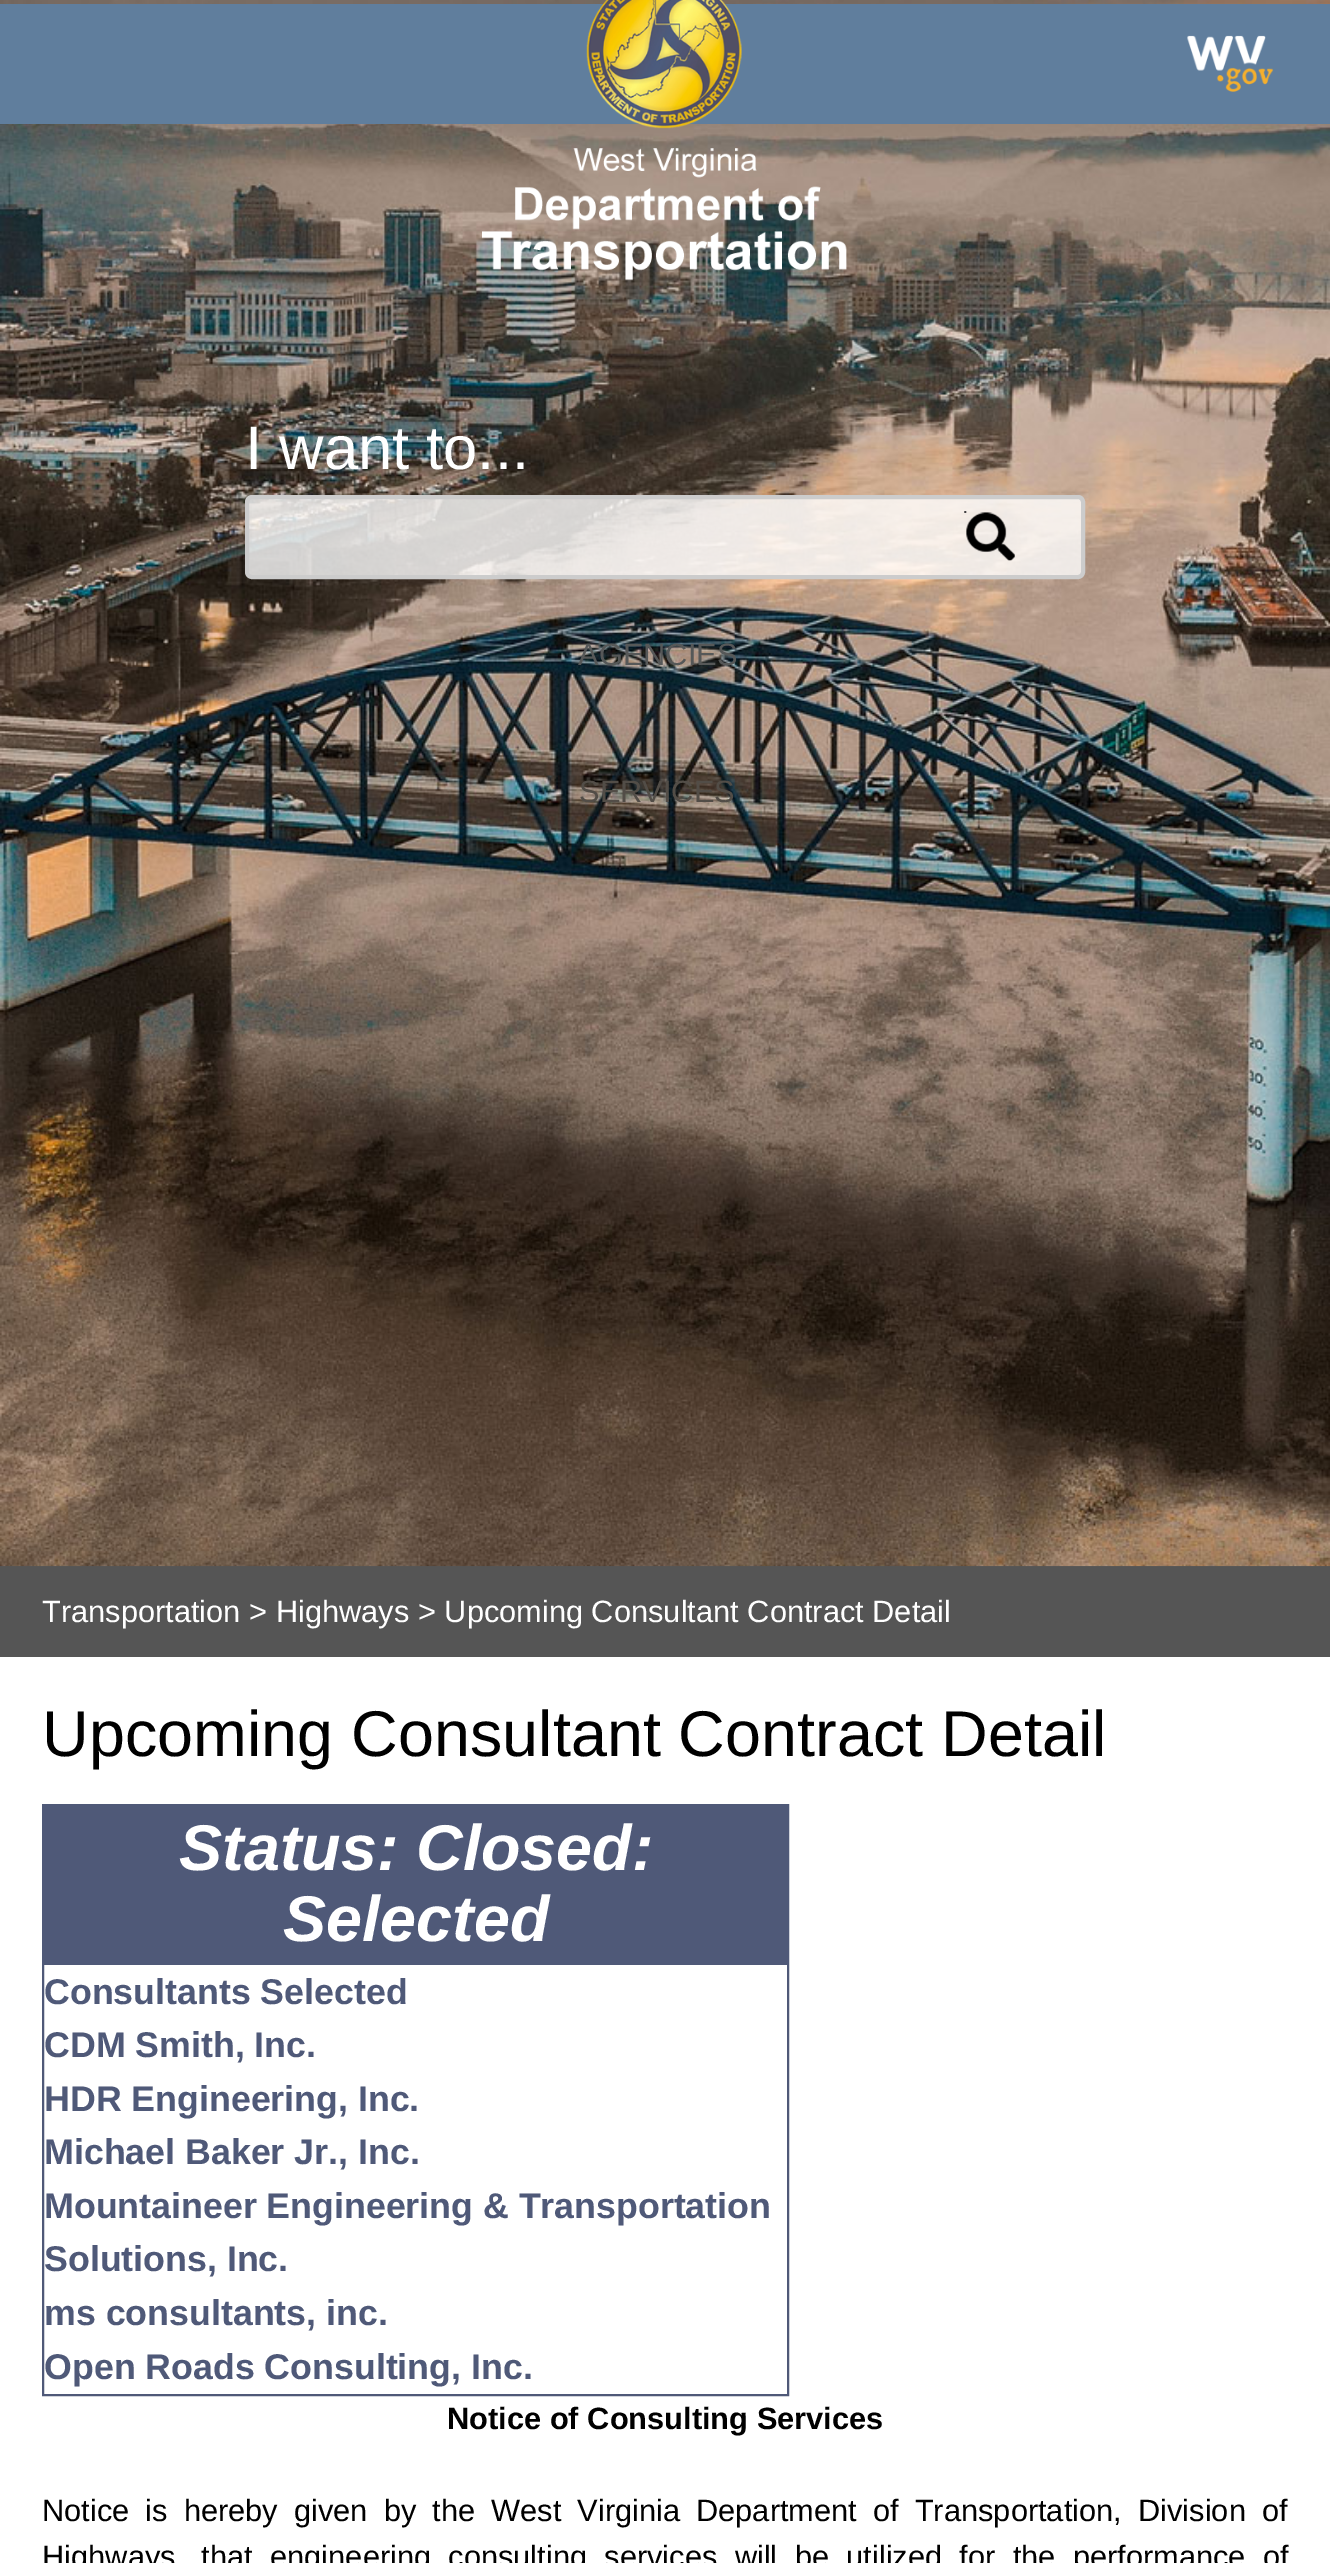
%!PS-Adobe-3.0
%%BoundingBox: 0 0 1330 2563
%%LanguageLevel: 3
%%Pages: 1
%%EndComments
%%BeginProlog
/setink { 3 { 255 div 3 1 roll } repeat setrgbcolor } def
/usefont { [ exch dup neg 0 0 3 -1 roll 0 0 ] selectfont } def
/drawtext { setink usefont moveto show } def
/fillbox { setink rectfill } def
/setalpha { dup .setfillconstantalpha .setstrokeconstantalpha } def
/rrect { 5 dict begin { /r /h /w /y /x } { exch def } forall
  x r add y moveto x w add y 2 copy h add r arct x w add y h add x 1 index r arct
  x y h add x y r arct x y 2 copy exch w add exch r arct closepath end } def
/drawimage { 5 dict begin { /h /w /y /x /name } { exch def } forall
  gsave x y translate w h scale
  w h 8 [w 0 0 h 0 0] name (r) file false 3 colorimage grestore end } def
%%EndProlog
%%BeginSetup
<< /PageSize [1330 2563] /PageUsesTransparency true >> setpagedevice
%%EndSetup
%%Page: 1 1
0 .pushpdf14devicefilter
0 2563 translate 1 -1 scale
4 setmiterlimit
0 0 1330 2563 85 85 85 fillbox
(assets/img1.rgb) 0 0 1330 1567 drawimage
0 4 1330 120 96 126 157 fillbox
(assets/img2.rgb) 482 0 365 281 drawimage
(assets/img3.rgb) 1187 35 87 57 drawimage
(I want to...) 245 469 /LiberationSans-Regular 61.5 255 255 255 drawtext
0.8 setalpha
247 497 836 80 5 rrect fill
1 setalpha
204 204 204 setink
4 setlinewidth
247 497 836 80 5 rrect stroke
(assets/img4.rgb) 964 511 51 50 drawimage
(AGENCIES) 578 665 /LiberationSans-Regular 30.8 86 88 88 drawtext
(SERVICES) 579 802 /LiberationSans-Regular 30.8 82 77 71 drawtext
(Transportation > Highways > Upcoming Consultant Contract Detail) 42 1622 /LiberationSans-Regular 30.8 255 255 255 drawtext
0 1657 1330 906 255 255 255 fillbox
(Upcoming Consultant Contract Detail) 42 1756 /LiberationSans-Regular 64.7 0 0 0 drawtext
79 89 120 setink
2 setlinewidth
43 1805 745 590 rectstroke
44 1806 743 159 79 89 120 fillbox
(Status: Closed:) 179 1870 /LiberationSans-BoldItalic 64.7 255 255 255 drawtext
(Selected) 283 1941 /LiberationSans-BoldItalic 64.7 255 255 255 drawtext
(Consultants Selected) 44 2004 /LiberationSans-Bold 35.75 79 89 120 drawtext
(CDM Smith, Inc.) 44 2057 /LiberationSans-Bold 35.75 79 89 120 drawtext
(HDR Engineering, Inc.) 44 2111 /LiberationSans-Bold 35.75 79 89 120 drawtext
(Michael Baker Jr., Inc.) 44 2164 /LiberationSans-Bold 35.75 79 89 120 drawtext
(Mountaineer Engineering & Transportation) 44 2218 /LiberationSans-Bold 35.75 79 89 120 drawtext
(Solutions, Inc.) 44 2271 /LiberationSans-Bold 35.75 79 89 120 drawtext
(ms consultants, inc.) 44 2325 /LiberationSans-Bold 35.75 79 89 120 drawtext
(Open Roads Consulting, Inc.) 44 2379 /LiberationSans-Bold 35.75 79 89 120 drawtext
(Notice of Consulting Services) 447 2429 /LiberationSans-Bold 30.8 0 0 0 drawtext
/LiberationSans-Regular 30.8 usefont
42 2521 moveto 7.5 0 32 (Notice is hereby given by the West Virginia Department of Transportation, Division of) widthshow
42 2567 moveto 8.75 0 32 (Highways, that engineering consulting services will be utilized for the performance of) widthshow
.poppdf14devicefilter showpage
%%EOF
